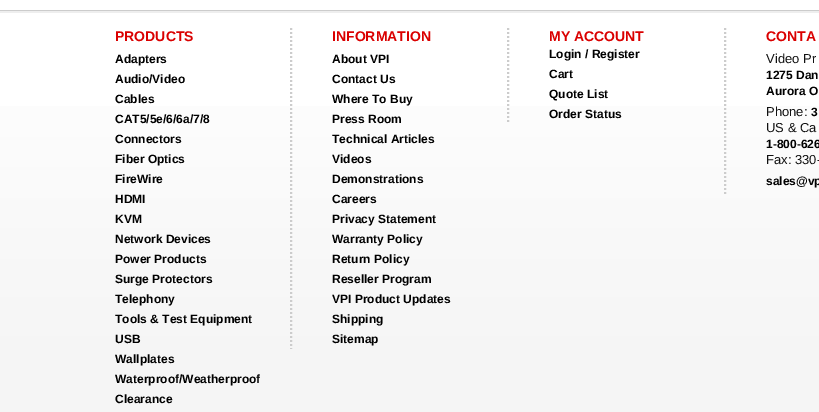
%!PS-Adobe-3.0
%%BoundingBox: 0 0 819 412
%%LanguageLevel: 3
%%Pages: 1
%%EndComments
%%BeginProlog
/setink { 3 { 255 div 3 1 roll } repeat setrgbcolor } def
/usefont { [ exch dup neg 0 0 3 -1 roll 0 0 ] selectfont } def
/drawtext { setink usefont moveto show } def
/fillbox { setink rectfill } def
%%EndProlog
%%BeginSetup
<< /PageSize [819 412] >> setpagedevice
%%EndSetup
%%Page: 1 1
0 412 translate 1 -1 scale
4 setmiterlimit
0 0 819 412 255 255 255 fillbox
0 10 819 1 204 204 204 fillbox
gsave 0 106 moveto 819 106 lineto 819 412 lineto 0 412 lineto closepath clip newpath
<< /ShadingType 2 /ColorSpace /DeviceRGB /Coords [490 13 490 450] /Extend [true true] /Function << /FunctionType 3 /Domain [0 1] /Functions [<< /FunctionType 2 /Domain [0 1] /C0 [1 1 1] /C1 [0.961 0.961 0.961] /N 1 >> << /FunctionType 2 /Domain [0 1] /C0 [0.961 0.961 0.961] /C1 [0.961 0.961 0.961] /N 1 >> << /FunctionType 2 /Domain [0 1] /C0 [0.961 0.961 0.961] /C1 [0.961 0.961 0.961] /N 1 >>] /Bounds [0.85 0.99] /Encode [0 1 0 1 0 1] >> >> shfill grestore
0 11 819 2 238 238 238 fillbox
(PRODUCTS) 115 41 /LiberationSans-Bold 14 218 0 0 drawtext
(Adapters) 115 63 /LiberationSans-Bold 12 0 0 0 drawtext
(Audio/Video) 115 83 /LiberationSans-Bold 12 0 0 0 drawtext
(Cables) 115 103 /LiberationSans-Bold 12 0 0 0 drawtext
(CAT5/5e/6/6a/7/8) 115 123 /LiberationSans-Bold 12 0 0 0 drawtext
(Connectors) 115 143 /LiberationSans-Bold 12 0 0 0 drawtext
(Fiber Optics) 115 163 /LiberationSans-Bold 12 0 0 0 drawtext
(FireWire) 115 183 /LiberationSans-Bold 12 0 0 0 drawtext
(HDMI) 115 203 /LiberationSans-Bold 12 0 0 0 drawtext
(KVM) 115 223 /LiberationSans-Bold 12 0 0 0 drawtext
(Network Devices) 115 243 /LiberationSans-Bold 12 0 0 0 drawtext
(Power Products) 115 263 /LiberationSans-Bold 12 0 0 0 drawtext
(Surge Protectors) 115 283 /LiberationSans-Bold 12 0 0 0 drawtext
(Telephony) 115 303 /LiberationSans-Bold 12 0 0 0 drawtext
(Tools & Test Equipment) 115 323 /LiberationSans-Bold 12 0 0 0 drawtext
(USB) 115 343 /LiberationSans-Bold 12 0 0 0 drawtext
(Wallplates) 115 363 /LiberationSans-Bold 12 0 0 0 drawtext
(Waterproof/Weatherproof) 115 383 /LiberationSans-Bold 12 0 0 0 drawtext
(Clearance) 115 403 /LiberationSans-Bold 12 0 0 0 drawtext
204 204 204 setink
2 setlinewidth
[2 2] 0 setdash
291 28 moveto 291 349 lineto stroke
(INFORMATION) 332 41 /LiberationSans-Bold 14 218 0 0 drawtext
(About VPI) 332 63 /LiberationSans-Bold 12 0 0 0 drawtext
(Contact Us) 332 83 /LiberationSans-Bold 12 0 0 0 drawtext
(Where To Buy) 332 103 /LiberationSans-Bold 12 0 0 0 drawtext
(Press Room) 332 123 /LiberationSans-Bold 12 0 0 0 drawtext
(Technical Articles) 332 143 /LiberationSans-Bold 12 0 0 0 drawtext
(Videos) 332 163 /LiberationSans-Bold 12 0 0 0 drawtext
(Demonstrations) 332 183 /LiberationSans-Bold 12 0 0 0 drawtext
(Careers) 332 203 /LiberationSans-Bold 12 0 0 0 drawtext
(Privacy Statement) 332 223 /LiberationSans-Bold 12 0 0 0 drawtext
(Warranty Policy) 332 243 /LiberationSans-Bold 12 0 0 0 drawtext
(Return Policy) 332 263 /LiberationSans-Bold 12 0 0 0 drawtext
(Reseller Program) 332 283 /LiberationSans-Bold 12 0 0 0 drawtext
(VPI Product Updates) 332 303 /LiberationSans-Bold 12 0 0 0 drawtext
(Shipping) 332 323 /LiberationSans-Bold 12 0 0 0 drawtext
(Sitemap) 332 343 /LiberationSans-Bold 12 0 0 0 drawtext
204 204 204 setink
508 28 moveto 508 124 lineto stroke
(MY ACCOUNT) 549 41 /LiberationSans-Bold 14 218 0 0 drawtext
(Login / Register) 549 58 /LiberationSans-Bold 12 0 0 0 drawtext
(Cart) 549 78 /LiberationSans-Bold 12 0 0 0 drawtext
(Quote List) 549 98 /LiberationSans-Bold 12 0 0 0 drawtext
(Order Status) 549 118 /LiberationSans-Bold 12 0 0 0 drawtext
204 204 204 setink
725 28 moveto 725 196 lineto stroke
(CONTA) 766 41 /LiberationSans-Bold 14 218 0 0 drawtext
(Video Pr) 766 63 /LiberationSans-Regular 13 17 17 17 drawtext
(1275 Dan) 766 79 /LiberationSans-Bold 12 0 0 0 drawtext
(Aurora O) 766 95 /LiberationSans-Bold 12 0 0 0 drawtext
(Phone:) 766 116 /LiberationSans-Regular 13 17 17 17 drawtext
(3) 811 116 /LiberationSans-Bold 12 0 0 0 drawtext
(US & Ca) 766 132 /LiberationSans-Regular 13 17 17 17 drawtext
(1-800-626) 766 148 /LiberationSans-Bold 12 0 0 0 drawtext
(Fax: 330-) 766 164 /LiberationSans-Regular 13 17 17 17 drawtext
(sales@vp) 766 185 /LiberationSans-Bold 12 0 0 0 drawtext
showpage
%%EOF
